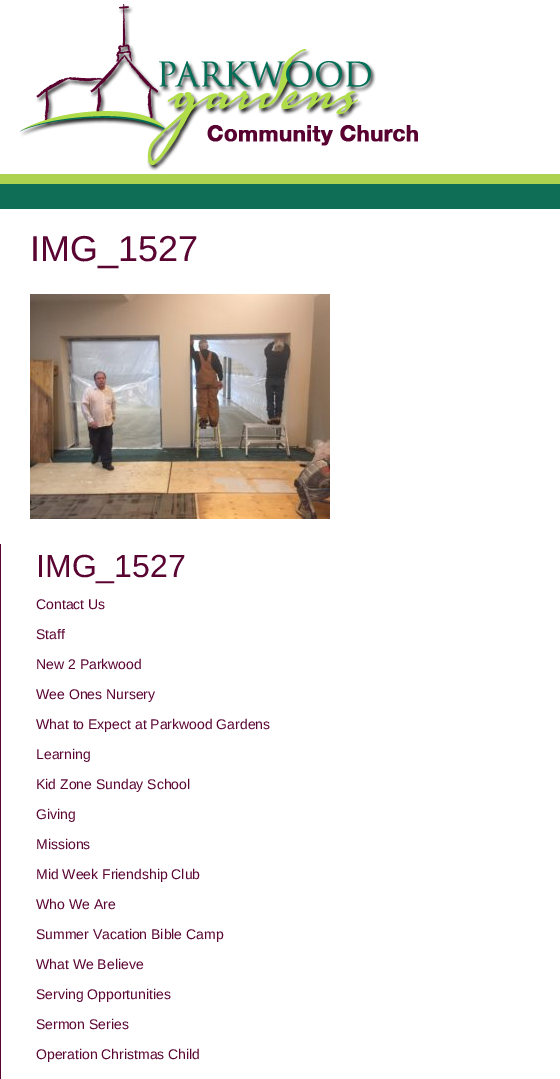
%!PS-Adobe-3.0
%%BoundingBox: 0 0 560 1079
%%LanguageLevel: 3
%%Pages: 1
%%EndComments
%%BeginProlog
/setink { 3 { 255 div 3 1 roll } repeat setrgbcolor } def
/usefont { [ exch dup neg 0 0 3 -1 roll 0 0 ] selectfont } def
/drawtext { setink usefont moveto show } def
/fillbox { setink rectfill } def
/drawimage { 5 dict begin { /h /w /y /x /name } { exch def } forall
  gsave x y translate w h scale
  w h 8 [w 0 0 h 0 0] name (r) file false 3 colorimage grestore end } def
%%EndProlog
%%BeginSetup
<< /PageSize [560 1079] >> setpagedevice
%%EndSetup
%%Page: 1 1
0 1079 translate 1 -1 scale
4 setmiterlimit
0 0 560 1079 255 255 255 fillbox
(assets/img1.rgb) 20 4 398 167 drawimage
0 174 560 10 173 210 79 fillbox
0 184 560 25 14 110 86 fillbox
(IMG_1527) 30 261 /LiberationSans-Regular 36 90 4 50 drawtext
(assets/img2.rgb) 30 294 300 225 drawimage
0 544 1 535 90 4 50 fillbox
(IMG_1527) 36 577 /LiberationSans-Regular 32 90 4 50 drawtext
(Contact Us) 36 609 /LiberationSans-Regular 14 90 4 50 drawtext
(Staff) 36 639 /LiberationSans-Regular 14 90 4 50 drawtext
(New 2 Parkwood) 36 669 /LiberationSans-Regular 14 90 4 50 drawtext
(Wee Ones Nursery) 36 699 /LiberationSans-Regular 14 90 4 50 drawtext
(What to Expect at Parkwood Gardens) 36 729 /LiberationSans-Regular 14 90 4 50 drawtext
(Learning) 36 759 /LiberationSans-Regular 14 90 4 50 drawtext
(Kid Zone Sunday School) 36 789 /LiberationSans-Regular 14 90 4 50 drawtext
(Giving) 36 819 /LiberationSans-Regular 14 90 4 50 drawtext
(Missions) 36 849 /LiberationSans-Regular 14 90 4 50 drawtext
(Mid Week Friendship Club) 36 879 /LiberationSans-Regular 14 90 4 50 drawtext
(Who We Are) 36 909 /LiberationSans-Regular 14 90 4 50 drawtext
(Summer Vacation Bible Camp) 36 939 /LiberationSans-Regular 14 90 4 50 drawtext
(What We Believe) 36 969 /LiberationSans-Regular 14 90 4 50 drawtext
(Serving Opportunities) 36 999 /LiberationSans-Regular 14 90 4 50 drawtext
(Sermon Series) 36 1029 /LiberationSans-Regular 14 90 4 50 drawtext
(Operation Christmas Child) 36 1059 /LiberationSans-Regular 14 90 4 50 drawtext
showpage
%%EOF
